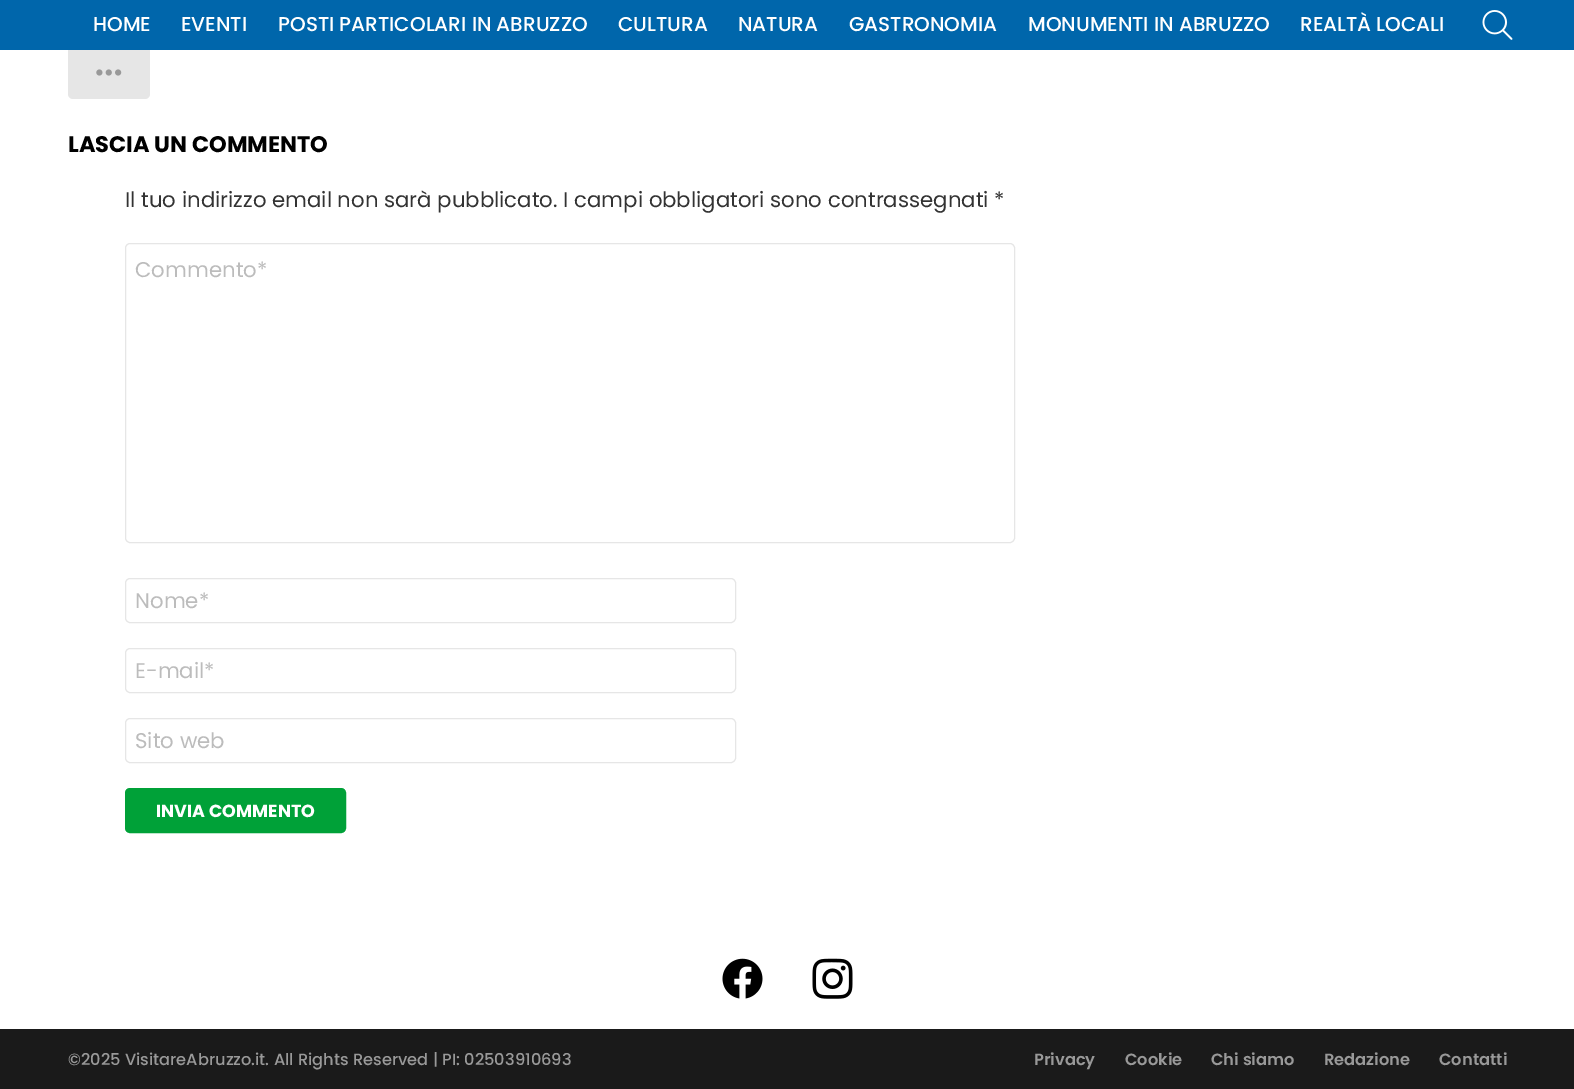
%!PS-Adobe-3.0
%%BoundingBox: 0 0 1574 1089
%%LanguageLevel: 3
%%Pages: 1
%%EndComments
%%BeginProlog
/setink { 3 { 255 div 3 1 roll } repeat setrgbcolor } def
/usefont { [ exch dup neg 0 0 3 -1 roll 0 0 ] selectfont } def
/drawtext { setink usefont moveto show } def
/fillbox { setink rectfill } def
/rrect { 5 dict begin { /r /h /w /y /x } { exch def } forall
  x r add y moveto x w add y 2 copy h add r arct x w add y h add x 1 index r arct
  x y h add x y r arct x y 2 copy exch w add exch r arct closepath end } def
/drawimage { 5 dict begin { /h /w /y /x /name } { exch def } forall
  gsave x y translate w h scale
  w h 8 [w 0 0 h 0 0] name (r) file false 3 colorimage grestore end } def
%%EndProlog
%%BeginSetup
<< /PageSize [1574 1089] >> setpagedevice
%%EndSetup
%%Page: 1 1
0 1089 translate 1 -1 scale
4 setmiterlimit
0 0 1574 1089 255 255 255 fillbox
230 230 230 setink
68 46 82 53 5 rrect fill
0 0 1574 50 0 102 171 fillbox
(HOME) 93 31 /Poppins-Medium 20 255 255 255 drawtext
(EVENTI) 181 31 /Poppins-Medium 20 255 255 255 drawtext
(POSTI PARTICOLARI IN ABRUZZO) 278 31 /Poppins-Medium 20 255 255 255 drawtext
(CULTURA) 618 31 /Poppins-Medium 20 255 255 255 drawtext
(NATURA) 738 31 /Poppins-Medium 20 255 255 255 drawtext
(GASTRONOMIA) 849 31 /Poppins-Medium 20 255 255 255 drawtext
(MONUMENTI IN ABRUZZO) 1028 31 /Poppins-Medium 20 255 255 255 drawtext
(REALTÀ LOCALI) 1300 31 /Poppins-Medium 20 255 255 255 drawtext
(assets/img1.rgb) 1482 10 31 30 drawimage
(assets/img2.rgb) 96 69 26 7 drawimage
(LASCIA UN COMMENTO) 68 152 /Poppins-Bold 22.5 0 0 0 drawtext
(Il tuo indirizzo email non sarà pubblicato. I campi obbligatori sono contrassegnati *) 125 207 /Poppins-Regular 21.25 51 51 51 drawtext
230 230 230 setink
125.5 243.5 889 299 4.5 rrect stroke
(Commento*) 135 277 /Poppins-Regular 21.25 188 188 188 drawtext
230 230 230 setink
125.5 578.5 610 44 4.5 rrect stroke
(Nome*) 135 608 /Poppins-Regular 21.25 188 188 188 drawtext
230 230 230 setink
125.5 648.5 610 44 4.5 rrect stroke
(E-mail*) 135 678 /Poppins-Regular 21.25 188 188 188 drawtext
230 230 230 setink
125.5 718.5 610 44 4.5 rrect stroke
(Sito web) 135 748 /Poppins-Regular 21.25 188 188 188 drawtext
0 161 56 setink
126.5 789.5 218 42 3.5 rrect gsave fill grestore
3 setlinewidth
stroke
(INVIA COMMENTO) 156 817 /Poppins-Bold 17.5 255 255 255 drawtext
(assets/img3.rgb) 722 958 41 41 drawimage
(assets/img4.rgb) 812 958 41 41 drawimage
0 1029 1574 60 26 26 26 fillbox
(©2025 VisitareAbruzzo.it. All Rights Reserved | PI: 02503910693) 68 1065 /Poppins-Medium 16.25 153 153 153 drawtext
(Privacy) 1034 1065 /Poppins-SemiBold 16.25 153 153 153 drawtext
(Cookie) 1125 1065 /Poppins-SemiBold 16.25 153 153 153 drawtext
(Chi siamo) 1211 1065 /Poppins-SemiBold 16.25 153 153 153 drawtext
(Redazione) 1324 1065 /Poppins-SemiBold 16.25 153 153 153 drawtext
(Contatti) 1439 1065 /Poppins-SemiBold 16.25 153 153 153 drawtext
showpage
%%EOF
